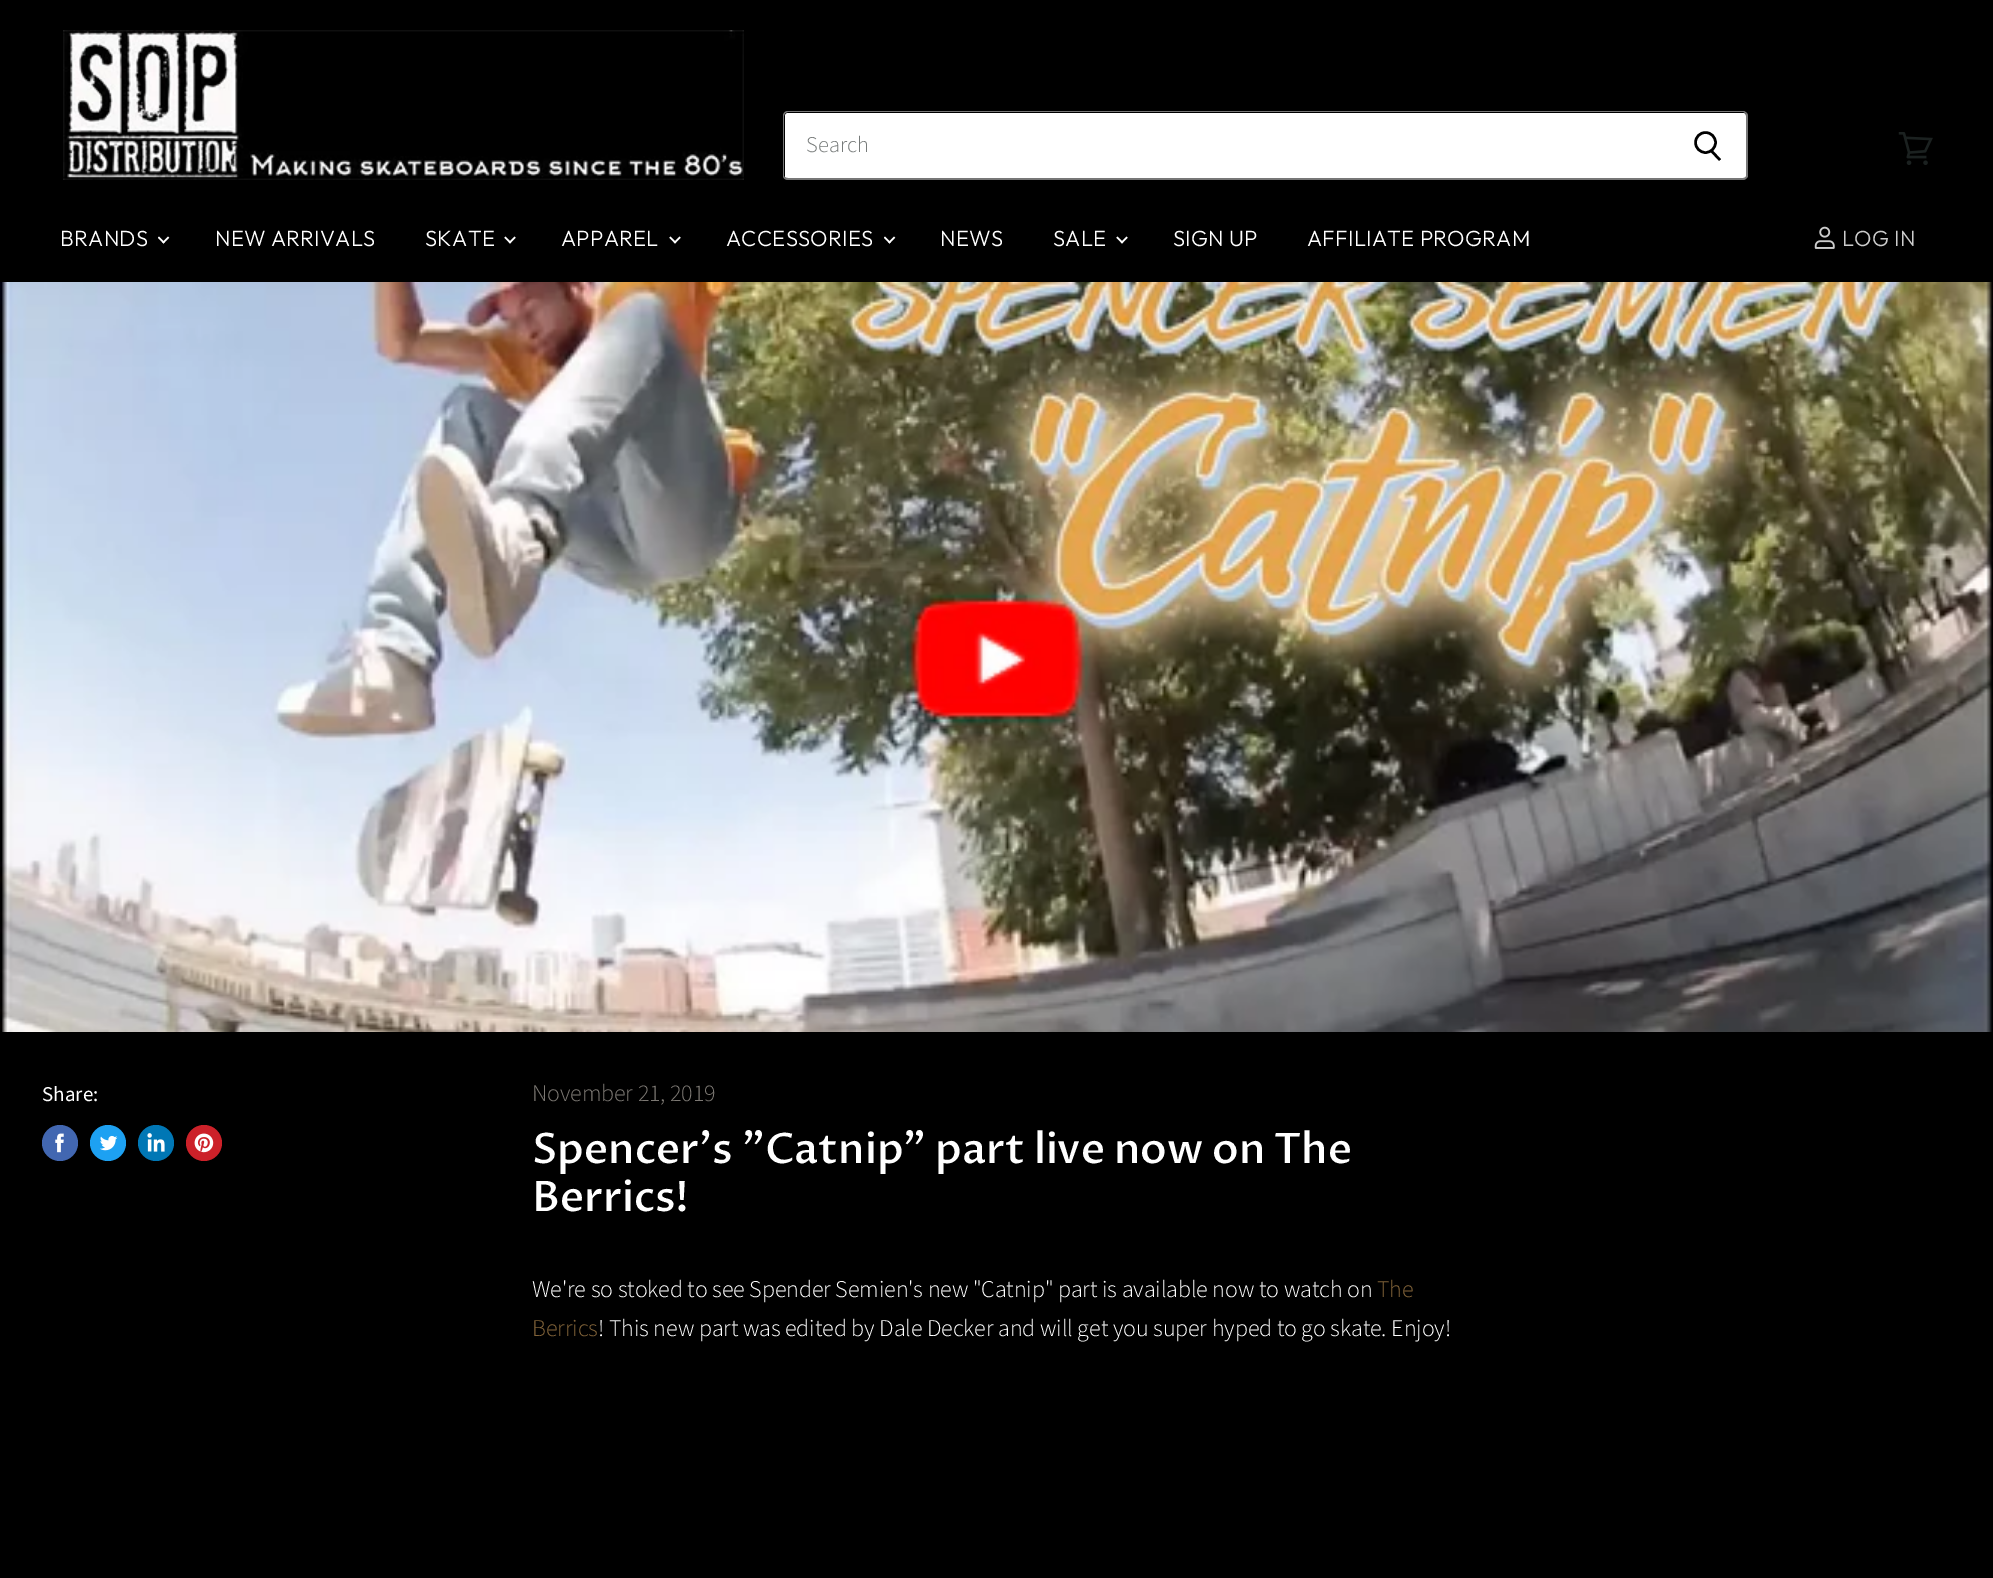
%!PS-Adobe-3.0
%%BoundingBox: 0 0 1993 1578
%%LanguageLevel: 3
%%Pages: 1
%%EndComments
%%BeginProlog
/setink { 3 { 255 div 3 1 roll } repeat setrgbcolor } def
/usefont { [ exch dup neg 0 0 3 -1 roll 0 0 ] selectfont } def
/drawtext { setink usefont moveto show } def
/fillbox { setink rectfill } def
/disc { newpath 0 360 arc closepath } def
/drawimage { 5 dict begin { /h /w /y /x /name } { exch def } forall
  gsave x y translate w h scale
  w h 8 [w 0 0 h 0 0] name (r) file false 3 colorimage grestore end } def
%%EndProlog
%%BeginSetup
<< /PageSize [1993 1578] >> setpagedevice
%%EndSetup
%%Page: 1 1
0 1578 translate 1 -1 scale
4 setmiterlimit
0 0 1993 1578 0 0 0 fillbox
(assets/img1.rgb) 63 30 681 150 drawimage
255 255 255 setink
788 113 moveto 1668 113 lineto 1668 179 lineto 788 179 lineto 786.5 179 785 177.5 785 176 curveto 785 116 lineto 785 114.5 786.5 113 788 113 curveto closepath fill
119 119 119 setink
788 111 moveto 1668 111 lineto 1668 180 lineto 788 180 lineto 785 180 783 178 783 176 curveto 783 116 lineto 783 113 785 111 788 111 curveto closepath 788 112 moveto 1668 112 lineto 1668 178 lineto 788 178 lineto 786 178 784 177 784 176 curveto 784 116 lineto 784 114 786 112 788 112 curveto closepath eofill
(Search) 806 152 /SourceSansPro-Light 22.5 118 122 121 drawtext
255 255 255 setink
1668 113 moveto 1743 113 lineto 1744.5 113 1746 114.5 1746 116 curveto 1746 176 lineto 1746 177.5 1744.5 179 1743 179 curveto 1668 179 lineto closepath fill
119 119 119 setink
1668 111 moveto 1743 111 lineto 1745 111 1748 113 1748 116 curveto 1748 176 lineto 1748 178 1745 180 1743 180 curveto 1668 180 lineto closepath 1668 112 moveto 1743 112 lineto 1745 112 1746 114 1746 116 curveto 1746 176 lineto 1746 177 1745 178 1743 178 curveto 1668 178 lineto closepath eofill
0 0 0 setink
2.5 setlinewidth
1720 160 moveto 1711.5 151 lineto stroke
1705.5 142.5 10 disc stroke
(assets/img2.rgb) 1898 132 35 33 drawimage
/Outfit-Light 22 usefont
255 255 255 setink
60 246 moveto 0.25 0 (BRANDS) ashow
(assets/img3.rgb) 158 236 12 8 drawimage
215 246 moveto 0.25 0 (NEW ARRIVALS) ashow
425 246 moveto 0.25 0 (SKATE) ashow
(assets/img4.rgb) 504 236 12 8 drawimage
561 246 moveto 0.25 0 (APPAREL) ashow
(assets/img4.rgb) 669 236 12 8 drawimage
726 246 moveto 0.25 0 (ACCESSORIES) ashow
(assets/img3.rgb) 884 236 12 8 drawimage
940 246 moveto 0.25 0 (NEWS) ashow
1053 246 moveto 0.25 0 (SALE) ashow
(assets/img4.rgb) 1116 236 12 8 drawimage
1173 246 moveto 0.25 0 (SIGN UP) ashow
1307 246 moveto 0.25 0 (AFFILIATE PROGRAM) ashow
(assets/img5.rgb) 1814 226 21 23 drawimage
204 204 204 setink
1842 246 moveto 0.25 0 (LOG IN) ashow
(assets/img6.rgb) 0 282 1993 750 drawimage
(Share:) 42 1101 /SourceSansPro-Regular 21 255 255 255 drawtext
66 103 177 setink
60 1143 18 disc fill
(assets/img7.rgb) 55 1133 9 20 drawimage
29 161 242 setink
108 1143 18 disc fill
(assets/img8.rgb) 100 1135 18 16 drawimage
0 119 181 setink
156 1143 18 disc fill
(assets/img9.rgb) 147 1133 18 19 drawimage
204 33 41 setink
204 1143 18 disc fill
(assets/img10.rgb) 194 1133 20 20 drawimage
/SourceSansPro-Light 24 usefont
124 120 115 setink
532 1101 moveto -0.12 0 (November 21, 2019) ashow
(Spencer's "Catnip" part live now on The) 532 1163 /ProzaLibre-Medium 42 255 255 255 drawtext
(Berrics!) 532 1211 /ProzaLibre-Medium 42 255 255 255 drawtext
/SourceSansPro-Light 24 usefont
532 1297 moveto -0.12 0 (We're so stoked to see Spender Semien's new "Catnip" part is available now to watch on) ashow
129 99 57 setink
1377 1297 moveto -0.12 0 (The) ashow
532 1336 moveto -0.12 0 (Berrics) ashow
255 255 255 setink
598 1336 moveto -0.12 0 (! This new part was edited by Dale Decker and will get you super hyped to go skate. Enjoy!) ashow
showpage
%%EOF
